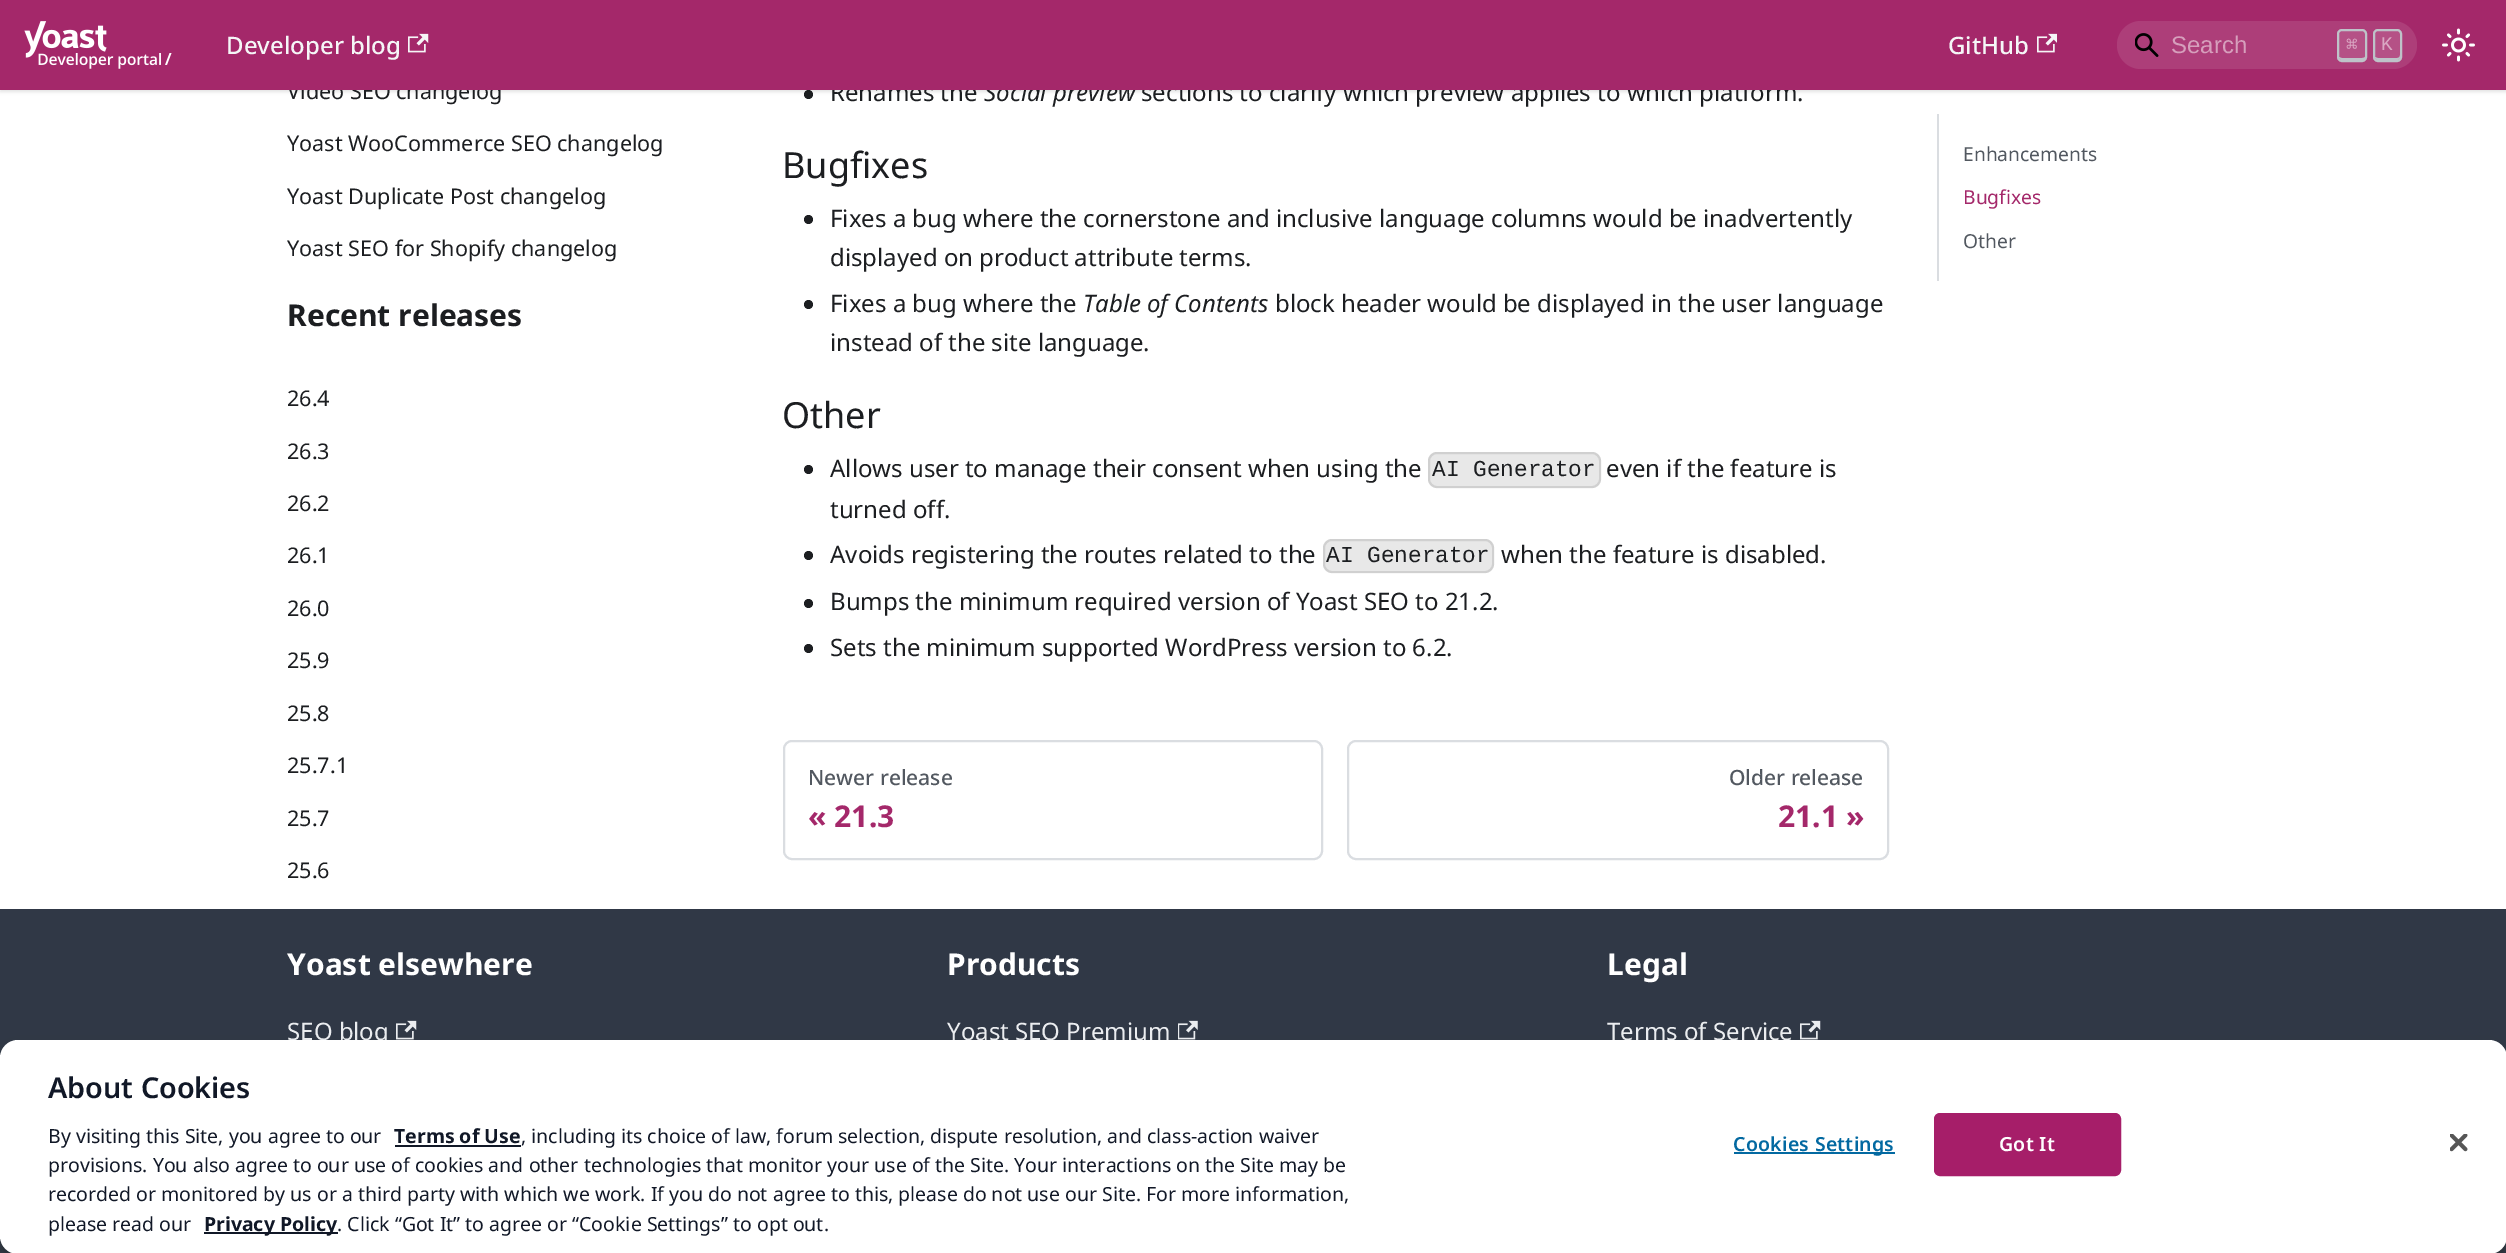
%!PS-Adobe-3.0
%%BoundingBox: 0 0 2506 1253
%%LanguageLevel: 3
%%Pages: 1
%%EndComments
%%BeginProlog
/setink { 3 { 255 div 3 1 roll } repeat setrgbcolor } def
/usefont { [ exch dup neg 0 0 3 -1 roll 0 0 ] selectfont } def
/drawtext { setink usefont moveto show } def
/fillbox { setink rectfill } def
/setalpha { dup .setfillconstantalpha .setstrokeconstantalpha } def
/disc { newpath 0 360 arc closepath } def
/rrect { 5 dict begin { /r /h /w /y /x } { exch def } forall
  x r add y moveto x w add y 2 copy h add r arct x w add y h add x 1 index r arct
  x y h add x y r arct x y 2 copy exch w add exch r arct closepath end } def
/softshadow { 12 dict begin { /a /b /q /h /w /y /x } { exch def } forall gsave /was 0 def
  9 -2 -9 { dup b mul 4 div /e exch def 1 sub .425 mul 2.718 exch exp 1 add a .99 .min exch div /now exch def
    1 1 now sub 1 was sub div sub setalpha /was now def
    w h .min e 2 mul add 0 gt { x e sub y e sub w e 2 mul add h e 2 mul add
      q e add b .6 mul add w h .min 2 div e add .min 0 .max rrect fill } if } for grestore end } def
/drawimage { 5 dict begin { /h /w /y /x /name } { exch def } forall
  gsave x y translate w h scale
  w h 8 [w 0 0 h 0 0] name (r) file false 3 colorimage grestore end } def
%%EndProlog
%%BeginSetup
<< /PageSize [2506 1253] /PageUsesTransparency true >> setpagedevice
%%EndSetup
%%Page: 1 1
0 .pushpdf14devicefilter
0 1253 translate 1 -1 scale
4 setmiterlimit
0 0 2506 1253 255 255 255 fillbox
28 30 33 setink
808.5 94.5 4.5 disc fill
0 0 0 setink
0 2 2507 90 0 1.5 0.1 softshadow
(Video SEO changelog) 287 99 /NotoSans-Regular 21.6 28 30 33 drawtext
(Renames the) 830 101 /NotoSans-Regular 24 28 30 33 drawtext
(Social preview) 984 101 /NotoSans-Italic 24 28 30 33 drawtext
(sections to clarify which preview applies to which platform.) 1141 101 /NotoSans-Regular 24 28 30 33 drawtext
0 0 2506 90 164 40 106 fillbox
(assets/img1.rgb) 24 21 148 48 drawimage
(Developer blog) 226 54 /NotoSans-Medium 24 245 246 247 drawtext
(assets/img2.rgb) 408 33 21 20 drawimage
(GitHub) 1948 54 /NotoSans-Medium 24 245 246 247 drawtext
(assets/img3.rgb) 2037 33 20 20 drawimage
173 62 121 setink
2117 21 300 48 24 rrect fill
(assets/img4.rgb) 2135 33 24 24 drawimage
(Search) 2171 53 /LiberationSans-Regular 24 214 159 188 drawtext
181 81 134 setink
2337 29 30 33 5 rrect fill
190 195 201 setink
2339 57 moveto 2339 58.5 2340.5 60 2342 60 curveto 2363 60 lineto 2364.5 60 2366 58.5 2366 57 curveto 2366 55 lineto 2366 57 2364 58 2362 58 curveto 2342 58 lineto 2341 58 2340 57.5 2339 57 curveto closepath fill
2 setlinewidth
2338 30 28 31 4 rrect stroke
(⌘) 2346 51 /DejaVuSansMono-Regular 19.25 218 168 195 drawtext
181 81 134 setink
2373 29 29 33 5 rrect fill
190 195 201 setink
2375 57 moveto 2375 58.5 2376.5 60 2378 60 curveto 2397 60 lineto 2398.5 60 2400 58.5 2400 57 curveto 2400 55 lineto 2400 57 2399 58 2397 58 curveto 2378 58 lineto 2377 58 2376 57.5 2375 57 curveto closepath fill
2374 30 27 31 4 rrect stroke
(K) 2381 50 /LiberationMono-Regular 19.25 218 168 195 drawtext
(assets/img5.rgb) 2442 28 33 34 drawimage
(Yoast WooCommerce SEO changelog) 287 151 /NotoSans-Regular 21.6 28 30 33 drawtext
(Yoast Duplicate Post changelog) 287 204 /NotoSans-Regular 21.6 28 30 33 drawtext
(Yoast SEO for Shopify changelog) 287 256 /NotoSans-Regular 21.6 28 30 33 drawtext
(Recent releases) 287 326 /NotoSans-Bold 30 28 30 33 drawtext
(26.4) 287 406 /NotoSans-Regular 21.6 28 30 33 drawtext
(26.3) 287 459 /NotoSans-Regular 21.6 28 30 33 drawtext
(26.2) 287 511 /NotoSans-Regular 21.6 28 30 33 drawtext
(26.1) 287 563 /NotoSans-Regular 21.6 28 30 33 drawtext
(26.0) 287 616 /NotoSans-Regular 21.6 28 30 33 drawtext
(25.9) 287 668 /NotoSans-Regular 21.6 28 30 33 drawtext
(25.8) 287 721 /NotoSans-Regular 21.6 28 30 33 drawtext
(25.7.1) 287 773 /NotoSans-Regular 21.6 28 30 33 drawtext
(25.7) 287 826 /NotoSans-Regular 21.6 28 30 33 drawtext
(25.6) 287 878 /NotoSans-Regular 21.6 28 30 33 drawtext
(Bugfixes) 782 178 /NotoSans-Regular 36 28 30 33 drawtext
808.5 219.5 4.5 disc fill
(Fixes a bug where the cornerstone and inclusive language columns would be inadvertently) 830 227 /NotoSans-Regular 24 28 30 33 drawtext
(displayed on product attribute terms.) 830 266 /NotoSans-Regular 24 28 30 33 drawtext
808.5 304.5 4.5 disc fill
(Fixes a bug where the) 830 312 /NotoSans-Regular 24 28 30 33 drawtext
(Table of Contents) 1083 312 /NotoSans-Italic 24 28 30 33 drawtext
(block header would be displayed in the user language) 1275 312 /NotoSans-Regular 24 28 30 33 drawtext
(instead of the site language.) 830 351 /NotoSans-Regular 24 28 30 33 drawtext
(Other) 782 428 /NotoSans-Regular 36 28 30 33 drawtext
808.5 469.5 4.5 disc fill
(Allows user to manage their consent when using the) 830 477 /NotoSans-Regular 24 28 30 33 drawtext
232 232 232 setink
1428 452 173 36 9 rrect fill
0.1 setalpha
0 0 0 setink
1429 453 171 34 8 rrect stroke
1 setalpha
(AI Generator) 1432 476 /LiberationMono-Regular 22.75 28 30 33 drawtext
(even if the feature is) 1606 477 /NotoSans-Regular 24 28 30 33 drawtext
(turned off.) 830 518 /NotoSans-Regular 24 28 30 33 drawtext
808.5 555.5 4.5 disc fill
(Avoids registering the routes related to the) 830 563 /NotoSans-Regular 24 28 30 33 drawtext
232 232 232 setink
1323 539 171 34 9 rrect fill
0.1 setalpha
0 0 0 setink
1324 540 169 32 8 rrect stroke
1 setalpha
(AI Generator) 1326 562 /LiberationMono-Regular 22.75 28 30 33 drawtext
(when the feature is disabled.) 1501 563 /NotoSans-Regular 24 28 30 33 drawtext
808.5 603.5 4.5 disc fill
(Bumps the minimum required version of Yoast SEO to 21.2.) 830 610 /NotoSans-Regular 24 28 30 33 drawtext
808.5 648.5 4.5 disc fill
(Sets the minimum supported WordPress version to 6.2.) 830 656 /NotoSans-Regular 24 28 30 33 drawtext
218 221 225 setink
784 741 538 118 8 rrect stroke
(Newer release) 808 785 /NotoSans-Medium 21 82 88 96 drawtext
(« 21.3) 808 827 /NotoSans-Bold 30 164 40 106 drawtext
218 221 225 setink
1348 741 540 118 8 rrect stroke
(Older release) 1729 785 /NotoSans-Medium 21 82 88 96 drawtext
(21.1 ») 1778 827 /NotoSans-Bold 30 164 40 106 drawtext
1937 114 2 167 218 221 225 fillbox
(Enhancements) 1963 161 /NotoSans-Regular 19.25 82 88 96 drawtext
(Bugfixes) 1963 204 /NotoSans-Regular 19.25 164 40 106 drawtext
(Other) 1963 248 /NotoSans-Regular 19.25 82 88 96 drawtext
0 909 2506 344 48 56 70 fillbox
(Yoast elsewhere) 287 975 /NotoSans-Bold 30 255 255 255 drawtext
(SEO blog) 287 1040 /NotoSans-Regular 24 235 237 240 drawtext
(assets/img6.rgb) 396 1020 21 20 drawimage
(Products) 947 975 /NotoSans-Bold 30 255 255 255 drawtext
(Yoast SEO Premium) 947 1040 /NotoSans-Regular 24 235 237 240 drawtext
(assets/img7.rgb) 1178 1020 20 20 drawimage
(Legal) 1607 975 /NotoSans-Bold 30 255 255 255 drawtext
(Terms of Service) 1607 1040 /NotoSans-Regular 24 235 237 240 drawtext
(assets/img6.rgb) 1800 1020 21 20 drawimage
0 0 0 setink
6 1052 2495 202 12 4.5 0.2 softshadow
5 1059 2497 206 14 11 0.2 softshadow
255 255 255 setink
0 1040 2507 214 18 rrect fill
(About Cookies) 48 1098 /NotoSans-SemiBold 28.75 17 24 39 drawtext
(By visiting this Site, you agree to our) 48 1143 /NotoSans-Regular 19.5 17 24 39 drawtext
(Terms of Use) 394 1143 /NotoSans-Bold 19.5 17 24 39 drawtext
395 1145 126 2 17 24 39 fillbox
(, including its choice of law, forum selection, dispute resolution, and class-action waiver) 521 1143 /NotoSans-Regular 19.5 17 24 39 drawtext
(provisions. You also agree to our use of cookies and other technologies that monitor your use of the Site. Your interactions on the Site may be) 48 1172 /NotoSans-Regular 19.5 17 24 39 drawtext
(recorded or monitored by us or a third party with which we work. If you do not agree to this, please do not use our Site. For more information,) 48 1201 /NotoSans-Regular 19.5 17 24 39 drawtext
(please read our) 48 1231 /NotoSans-Regular 19.5 17 24 39 drawtext
204 1232 134 2 17 24 39 fillbox
(Privacy Policy) 204 1231 /NotoSans-Bold 19.5 17 24 39 drawtext
(. Click “Got It” to agree or “Cookie Settings” to opt out.) 337 1231 /NotoSans-Regular 19.5 17 24 39 drawtext
1734 1152 161 2 3 105 161 fillbox
/NotoSans-SemiBold 19.5 usefont
1733 1151 moveto 0.25 0 (Cookies Settings) ashow
166 30 105 setink
1935 1114 185 61 5 rrect gsave fill grestore
stroke
255 255 255 setink
1999 1151 moveto 0.25 0 (Got It) ashow
(assets/img8.rgb) 2450 1134 18 18 drawimage
.poppdf14devicefilter showpage
%%EOF
